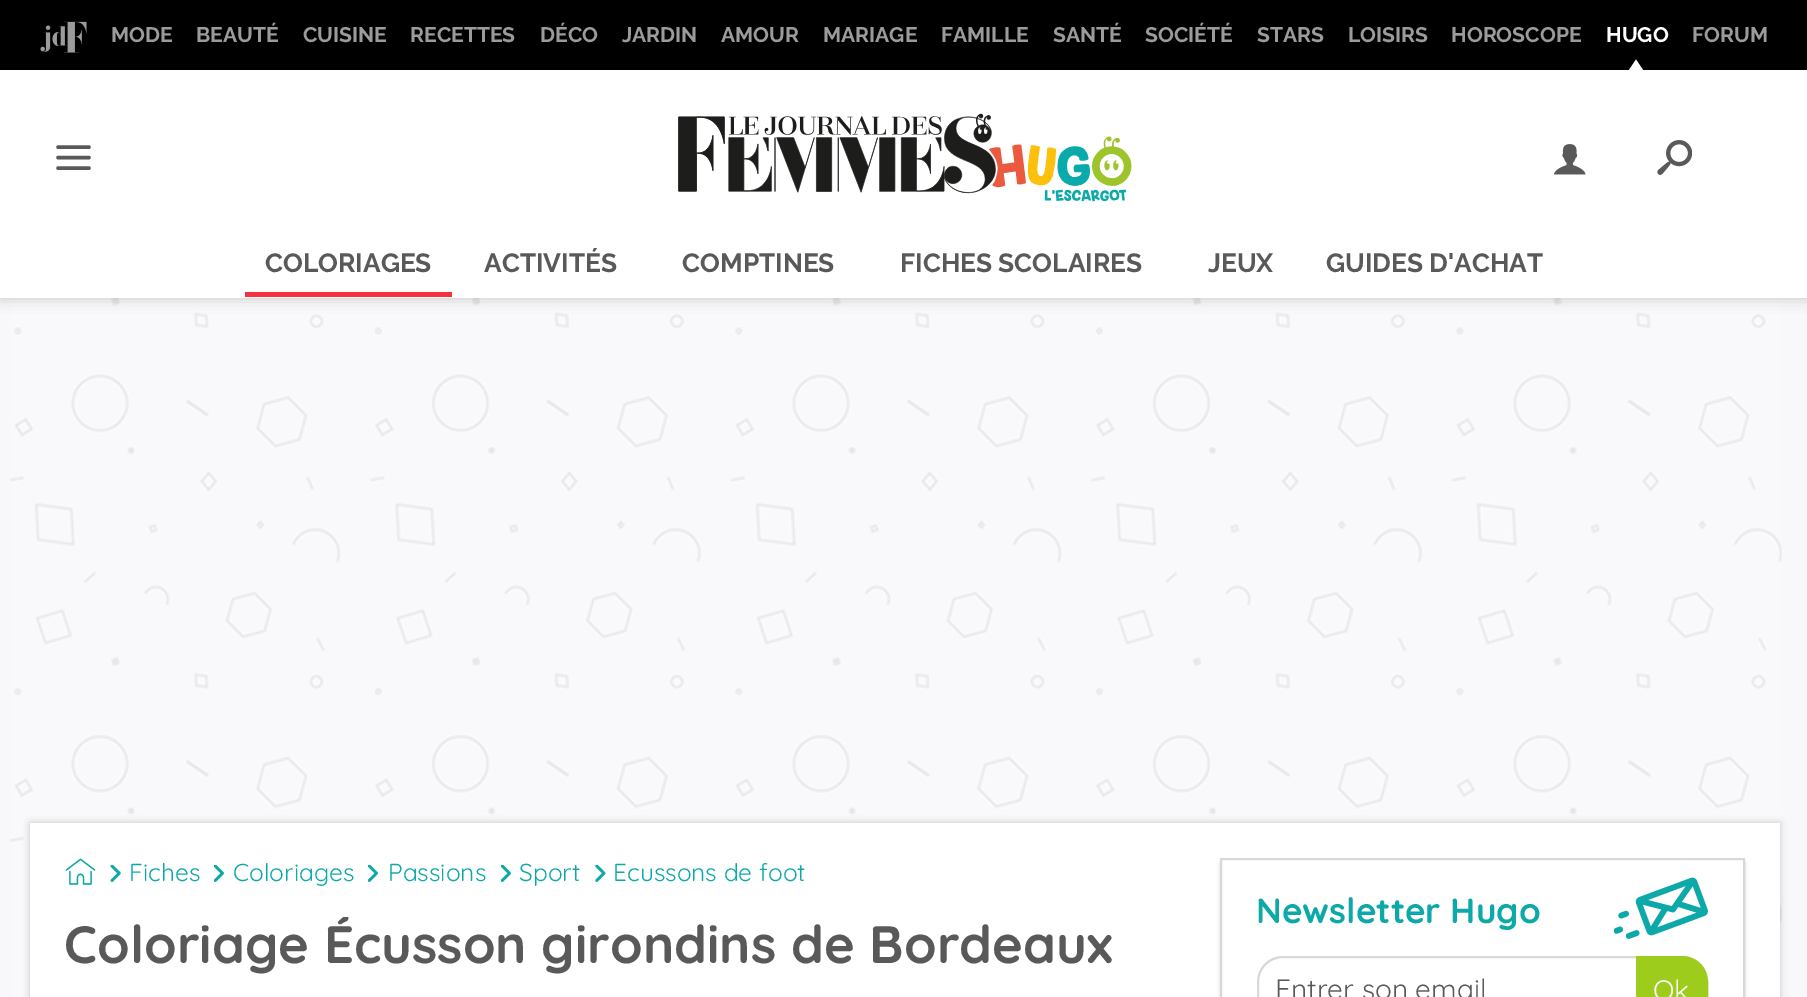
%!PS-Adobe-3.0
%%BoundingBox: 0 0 1807 997
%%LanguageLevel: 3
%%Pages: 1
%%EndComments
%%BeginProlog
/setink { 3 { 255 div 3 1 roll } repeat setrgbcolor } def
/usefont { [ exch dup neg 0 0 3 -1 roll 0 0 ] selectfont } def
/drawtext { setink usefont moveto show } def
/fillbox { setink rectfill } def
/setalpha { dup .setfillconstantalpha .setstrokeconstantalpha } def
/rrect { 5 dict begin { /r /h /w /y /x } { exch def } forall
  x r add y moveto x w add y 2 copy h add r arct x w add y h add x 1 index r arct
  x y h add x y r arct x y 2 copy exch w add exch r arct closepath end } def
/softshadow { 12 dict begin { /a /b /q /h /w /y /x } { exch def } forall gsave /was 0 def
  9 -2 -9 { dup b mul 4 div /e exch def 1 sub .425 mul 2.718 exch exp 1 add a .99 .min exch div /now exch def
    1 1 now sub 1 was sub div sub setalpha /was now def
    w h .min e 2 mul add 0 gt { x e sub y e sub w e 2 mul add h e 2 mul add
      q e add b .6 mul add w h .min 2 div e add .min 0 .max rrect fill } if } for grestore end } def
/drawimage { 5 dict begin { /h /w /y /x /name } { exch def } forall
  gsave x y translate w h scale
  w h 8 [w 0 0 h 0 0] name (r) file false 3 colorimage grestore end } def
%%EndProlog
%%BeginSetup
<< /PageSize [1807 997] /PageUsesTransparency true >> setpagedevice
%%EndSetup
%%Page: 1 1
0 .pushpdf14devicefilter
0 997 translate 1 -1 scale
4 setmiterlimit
0 0 1807 997 248 248 251 fillbox
(assets/img1.rgb) 10 298 1772 699 drawimage
0 0 0 setink
0 0 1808 298 0 7 0.2 softshadow
0 70 1807 228 255 255 255 fillbox
0 0 1807 70 0 0 0 fillbox
(assets/img2.rgb) 40 21 47 32 drawimage
(MODE) 111 42 /Raleway-Bold 21 155 155 155 drawtext
(BEAUTÉ) 196 42 /Raleway-Bold 21 155 155 155 drawtext
(CUISINE) 303 42 /Raleway-Bold 21 155 155 155 drawtext
(RECETTES) 410 42 /Raleway-Bold 21 155 155 155 drawtext
(DÉCO) 540 42 /Raleway-Bold 21 155 155 155 drawtext
(JARDIN) 622 42 /Raleway-Bold 21 155 155 155 drawtext
(AMOUR) 721 42 /Raleway-Bold 21 155 155 155 drawtext
(MARIAGE) 823 42 /Raleway-Bold 21 155 155 155 drawtext
(FAMILLE) 941 42 /Raleway-Bold 21 155 155 155 drawtext
(SANTÉ) 1053 42 /Raleway-Bold 21 155 155 155 drawtext
(SOCIÉTÉ) 1145 42 /Raleway-Bold 21 155 155 155 drawtext
(STARS) 1257 42 /Raleway-Bold 21 155 155 155 drawtext
(LOISIRS) 1348 42 /Raleway-Bold 21 155 155 155 drawtext
(HOROSCOPE) 1451 42 /Raleway-Bold 21 155 155 155 drawtext
(HUGO) 1606 42 /Raleway-Bold 21 255 255 255 drawtext
1643 70 moveto 1629 70 lineto 1636 59.5 lineto closepath fill
(FORUM) 1692 42 /Raleway-Bold 21 155 155 155 drawtext
89 89 89 setink
3.5 setlinewidth
1 setlinecap
58 157.5 moveto 89 157.5 lineto 58 147 moveto 89 147 lineto 58 168 moveto 89 168 lineto stroke
(assets/img3.rgb) 678 113 454 89 drawimage
(assets/img4.rgb) 1554 144 32 31 drawimage
(assets/img5.rgb) 1657 140 35 35 drawimage
245 292 207 5 246 48 62 fillbox
(COLORIAGES) 265 272 /Raleway-Bold 26.25 89 89 89 drawtext
(ACTIVITÉS) 484 272 /Raleway-Bold 26.25 89 89 89 drawtext
(COMPTINES) 682 272 /Raleway-Bold 26.25 89 89 89 drawtext
(FICHES SCOLAIRES) 900 272 /Raleway-Bold 26.25 89 89 89 drawtext
(JEUX) 1208 272 /Raleway-Bold 26.25 89 89 89 drawtext
(GUIDES D'ACHAT) 1326 272 /Raleway-Bold 26.25 89 89 89 drawtext
0 0 0 setink
30 823 1750 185 0 3.5 0.2 softshadow
30 823 1750 174 255 255 255 fillbox
(assets/img6.rgb) 65 858 31 27 drawimage
(assets/img7.rgb) 110 865 11 17 drawimage
(Fiches) 129 881 /Quicksand-Regular 24.5 13 169 168 drawtext
(assets/img8.rgb) 214 865 10 17 drawimage
(Coloriages) 233 881 /Quicksand-Regular 24.5 13 169 168 drawtext
(assets/img8.rgb) 368 865 10 17 drawimage
(Passions) 388 881 /Quicksand-Regular 24.5 13 169 168 drawtext
(assets/img8.rgb) 501 865 10 17 drawimage
(Sport) 519 881 /Quicksand-Regular 24.5 13 169 168 drawtext
(assets/img9.rgb) 595 865 11 17 drawimage
(Ecussons de foot) 613 881 /Quicksand-Regular 24.5 13 169 168 drawtext
gsave
65 917 1120 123 rectclip
(Coloriage Écusson girondins de Bordeaux) 64 963 /Quicksand-Bold 52.5 89 89 89 drawtext
grestore
gsave
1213 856 moveto 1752 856 lineto 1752 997 lineto 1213 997 lineto closepath 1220 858 moveto 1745 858 lineto 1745 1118 lineto 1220 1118 lineto closepath eoclip newpath
216 216 216 setink
1220 863 525 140 0 2 1 softshadow
grestore
216 216 216 setink
2 setlinewidth
0 setlinecap
1221 859 523 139 rectstroke
(Newsletter Hugo) 1256 923 /Quicksand-Bold 35 13 169 168 drawtext
(assets/img10.rgb) 1614 877 94 62 drawimage
216 216 216 setink
1258 957 449 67 25 rrect stroke
(Entrer son email) 1275 999 /Quicksand-Regular 28 89 89 89 drawtext
158 204 29 setink
1638 958 moveto 1682 958 lineto 1695.5 958 1706 968.5 1706 982 curveto 1706 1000 lineto 1706 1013.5 1695.5 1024 1682 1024 curveto 1638 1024 lineto closepath gsave fill grestore
4 setlinewidth
stroke
(Ok) 1653 1000 /Quicksand-Regular 28 255 255 255 drawtext
.poppdf14devicefilter showpage
%%EOF
